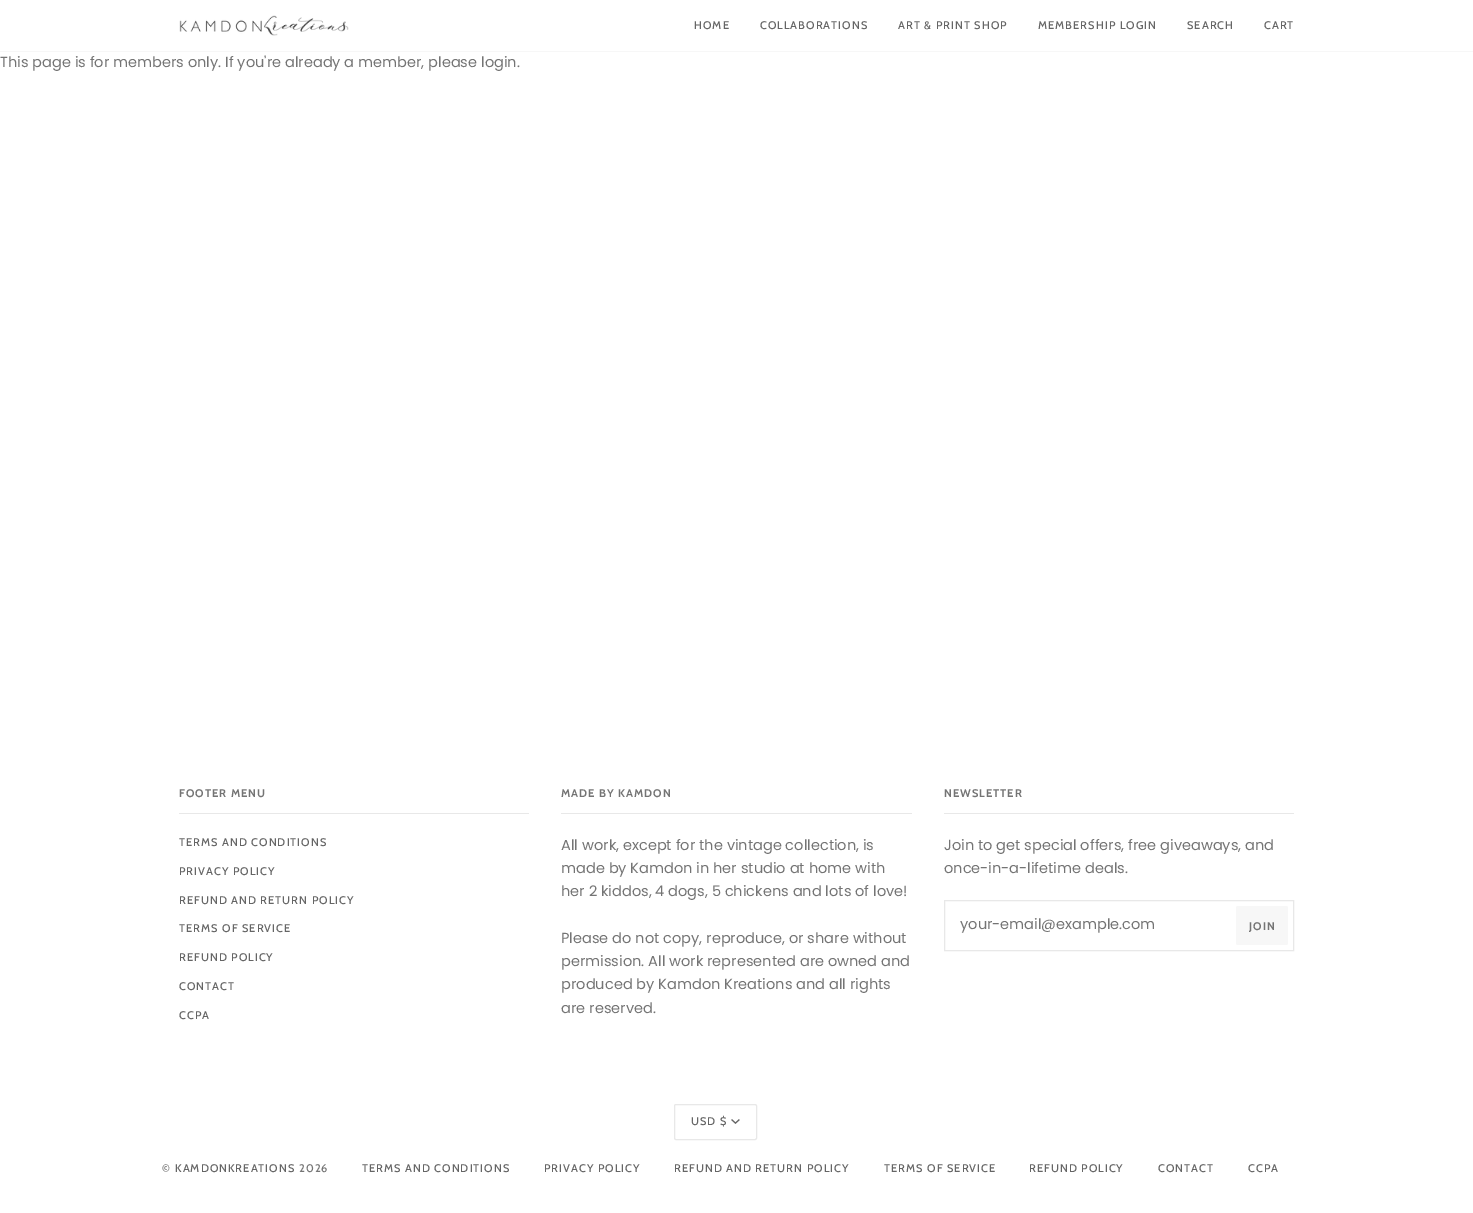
%!PS-Adobe-3.0
%%BoundingBox: 0 0 1473 1213
%%LanguageLevel: 3
%%Pages: 1
%%EndComments
%%BeginProlog
/setink { 3 { 255 div 3 1 roll } repeat setrgbcolor } def
/usefont { [ exch dup neg 0 0 3 -1 roll 0 0 ] selectfont } def
/drawtext { setink usefont moveto show } def
/fillbox { setink rectfill } def
/rrect { 5 dict begin { /r /h /w /y /x } { exch def } forall
  x r add y moveto x w add y 2 copy h add r arct x w add y h add x 1 index r arct
  x y h add x y r arct x y 2 copy exch w add exch r arct closepath end } def
/drawimage { 5 dict begin { /h /w /y /x /name } { exch def } forall
  gsave x y translate w h scale
  w h 8 [w 0 0 h 0 0] name (r) file false 3 colorimage grestore end } def
%%EndProlog
%%BeginSetup
<< /PageSize [1473 1213] >> setpagedevice
%%EndSetup
%%Page: 1 1
0 1213 translate 1 -1 scale
4 setmiterlimit
0 0 1473 1213 255 255 255 fillbox
0 51 1473 1 247 247 247 fillbox
(assets/img1.rgb) 179 15 170 21 drawimage
/Cabin-Medium 11.1 usefont
101 101 101 setink
694 29 moveto 1 0 (HOME) ashow
760 29 moveto 1 0 (COLLABORATIONS) ashow
898 29 moveto 1 0 (ART & PRINT SHOP) ashow
1038 29 moveto 1 0 (MEMBERSHIP LOGIN) ashow
1187 29 moveto 1 0 (SEARCH) ashow
1264 29 moveto 1 0 (CART) ashow
(This page is for members only. If you're already a member, please login.) 0 67 /Poppins-Regular 14.55 116 116 116 drawtext
/Cabin-Bold 11.1 usefont
179 797 moveto 1 0 (FOOTER MENU) ashow
179 813 350 1 232 232 232 fillbox
/Cabin-Medium 11.1 usefont
101 101 101 setink
179 846 moveto 1 0 (TERMS AND CONDITIONS) ashow
179 875 moveto 1 0 (PRIVACY POLICY) ashow
179 904 moveto 1 0 (REFUND AND RETURN POLICY) ashow
179 932 moveto 1 0 (TERMS OF SERVICE) ashow
179 961 moveto 1 0 (REFUND POLICY) ashow
179 990 moveto 1 0 (CONTACT) ashow
179 1019 moveto 1 0 (CCPA) ashow
/Cabin-Bold 11.1 usefont
116 116 116 setink
561 797 moveto 1 0 (MADE BY KAMDON) ashow
561 813 351 1 232 232 232 fillbox
(All work, except for the vintage collection, is) 561 850 /Poppins-Regular 14.55 116 116 116 drawtext
(made by Kamdon in her studio at home with) 561 873 /Poppins-Regular 14.55 116 116 116 drawtext
(her 2 kiddos, 4 dogs, 5 chickens and lots of love!) 561 896 /Poppins-Regular 14.55 116 116 116 drawtext
(Please do not copy, reproduce, or share without) 561 943 /Poppins-Regular 14.55 116 116 116 drawtext
(permission. All work represented are owned and) 561 966 /Poppins-Regular 14.55 116 116 116 drawtext
(produced by Kamdon Kreations and all rights) 561 989 /Poppins-Regular 14.55 116 116 116 drawtext
(are reserved.) 561 1013 /Poppins-Regular 14.55 116 116 116 drawtext
/Cabin-Bold 11.1 usefont
944 797 moveto 1 0 (NEWSLETTER) ashow
944 813 350 1 232 232 232 fillbox
(Join to get special offers, free giveaways, and) 944 850 /Poppins-Regular 14.55 116 116 116 drawtext
(once-in-a-lifetime deals.) 944 873 /Poppins-Regular 14.55 116 116 116 drawtext
232 232 232 setink
944.5 900.5 349 50 rectstroke
(your-email@example.com) 960 929 /Poppins-Regular 14.55 116 116 116 drawtext
247 247 247 setink
1236 906 52 39 2 rrect fill
/Cabin-Bold 11.1 usefont
116 116 116 setink
1249 930 moveto 1 0 (JOIN) ashow
232 232 232 setink
674.5 1104.5 82 35 1.5 rrect stroke
/Cabin-Medium 11.1 usefont
101 101 101 setink
691 1125 moveto 1 0 (USD $) ashow
(assets/img2.rgb) 731 1119 9 5 drawimage
116 116 116 setink
162 1172 moveto 1 0 (©) ashow
101 101 101 setink
175 1172 moveto 1 0 (KAMDONKREATIONS) ashow
116 116 116 setink
299 1172 moveto 1 0 (2026) ashow
101 101 101 setink
362 1172 moveto 1 0 (TERMS AND CONDITIONS) ashow
544 1172 moveto 1 0 (PRIVACY POLICY) ashow
674 1172 moveto 1 0 (REFUND AND RETURN POLICY) ashow
884 1172 moveto 1 0 (TERMS OF SERVICE) ashow
1029 1172 moveto 1 0 (REFUND POLICY) ashow
1158 1172 moveto 1 0 (CONTACT) ashow
1248 1172 moveto 1 0 (CCPA) ashow
showpage
%%EOF
